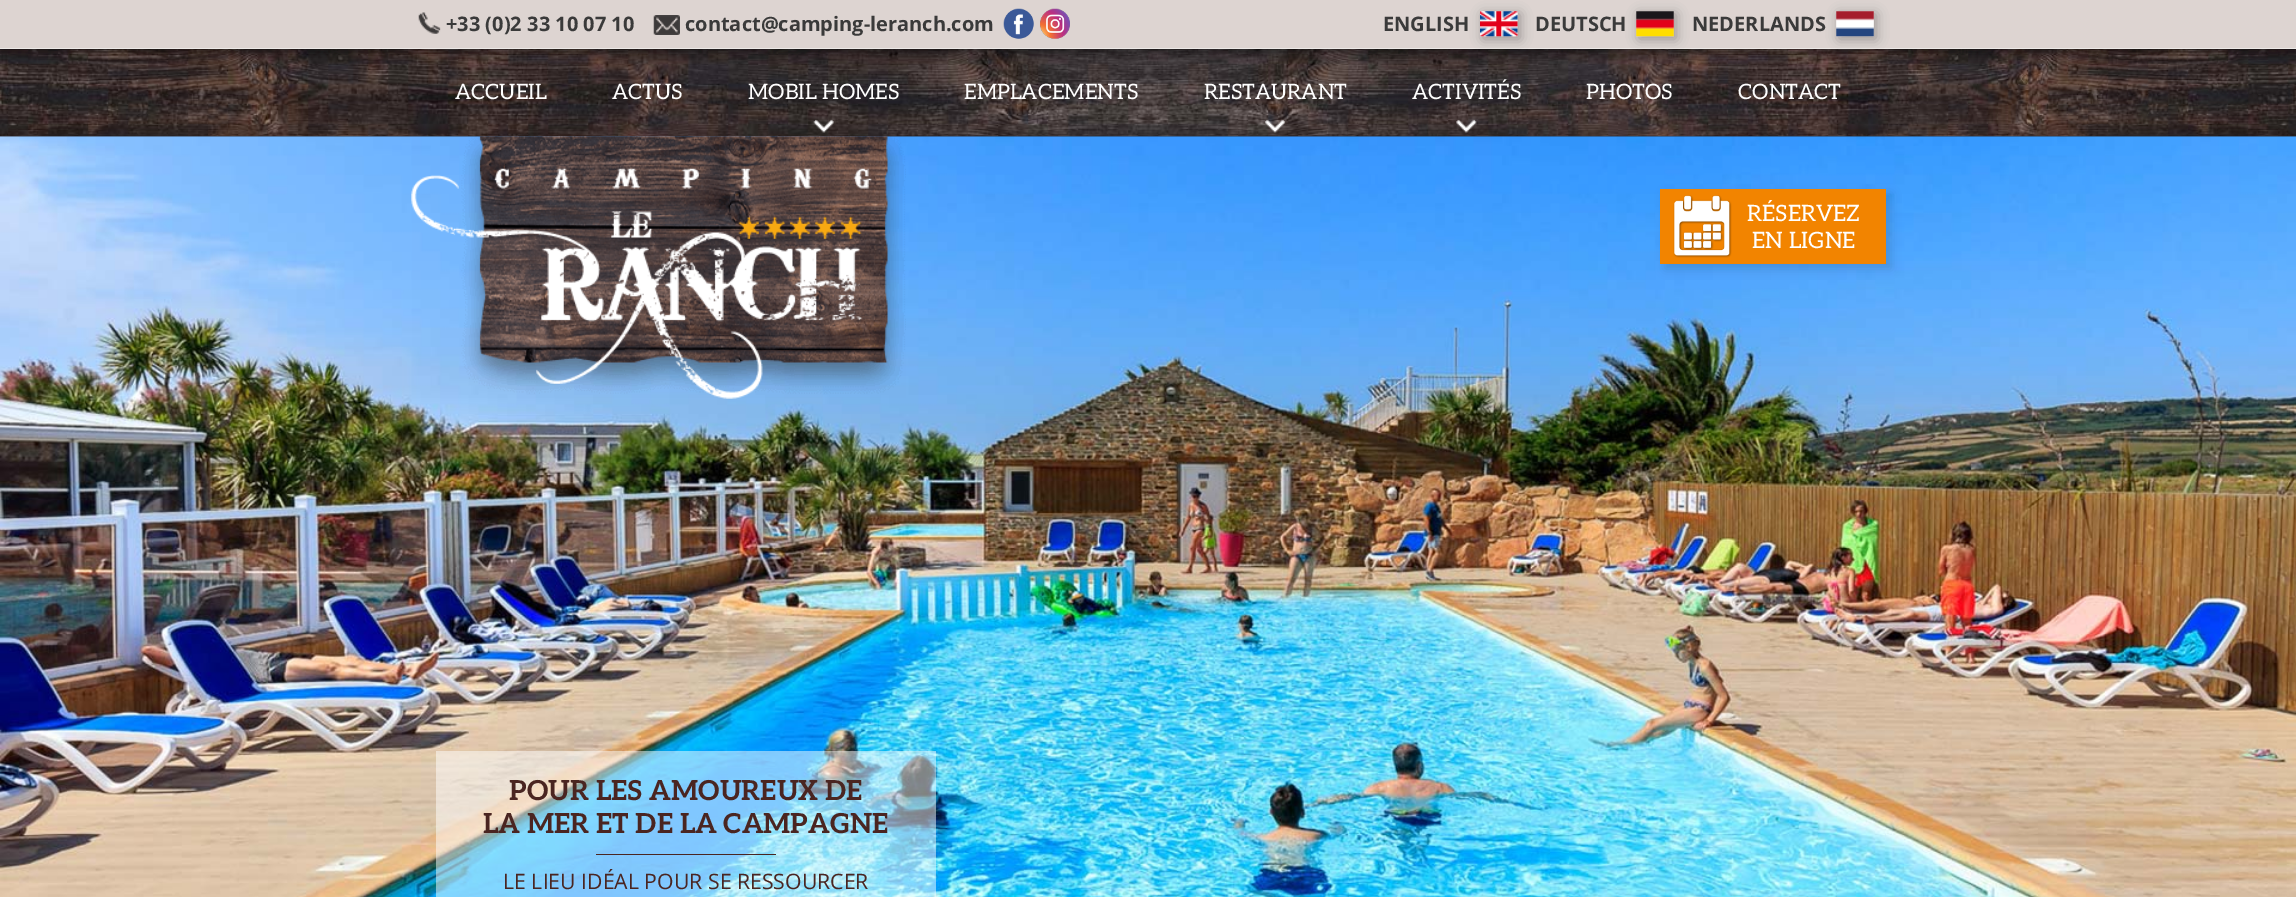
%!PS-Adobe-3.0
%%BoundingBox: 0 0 2296 897
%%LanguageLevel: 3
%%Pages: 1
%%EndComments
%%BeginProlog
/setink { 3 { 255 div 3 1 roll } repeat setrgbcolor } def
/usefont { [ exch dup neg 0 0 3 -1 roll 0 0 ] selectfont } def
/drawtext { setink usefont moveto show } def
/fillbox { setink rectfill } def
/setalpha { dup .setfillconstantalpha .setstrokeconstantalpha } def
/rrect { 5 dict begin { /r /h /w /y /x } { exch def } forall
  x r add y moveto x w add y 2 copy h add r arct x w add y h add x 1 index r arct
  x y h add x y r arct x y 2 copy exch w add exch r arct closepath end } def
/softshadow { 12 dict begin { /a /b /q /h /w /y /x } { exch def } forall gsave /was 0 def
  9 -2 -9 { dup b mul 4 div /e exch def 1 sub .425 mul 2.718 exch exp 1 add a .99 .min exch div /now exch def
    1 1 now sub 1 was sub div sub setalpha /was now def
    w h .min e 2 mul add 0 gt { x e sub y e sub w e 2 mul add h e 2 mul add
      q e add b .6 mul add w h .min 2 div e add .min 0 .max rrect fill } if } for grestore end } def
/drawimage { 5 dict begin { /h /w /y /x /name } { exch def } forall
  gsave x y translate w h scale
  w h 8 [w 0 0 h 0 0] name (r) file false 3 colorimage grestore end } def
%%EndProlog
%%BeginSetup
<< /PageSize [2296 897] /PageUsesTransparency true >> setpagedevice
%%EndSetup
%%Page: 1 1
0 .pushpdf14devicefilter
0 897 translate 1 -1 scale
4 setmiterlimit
0 0 2296 897 53 43 43 fillbox
0 0 0 setink
5 49 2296 87 0 7.5 0.53 softshadow
(assets/img8.rgb) 0 49 2296 88 drawimage
0 5 2296 49 0 5 0.44 softshadow
0 0 2296 48 221 212 209 fillbox
0 48 2296 1 237 233 231 fillbox
(assets/img1.rgb) 418 12 23 22 drawimage
(+33 \(0\)2 33 10 07 10) 446 31 /OpenSans-Bold 20 58 58 58 drawtext
(assets/img2.rgb) 653 15 27 20 drawimage
(contact@camping-leranch.com) 685 31 /OpenSans-Bold 20 58 58 58 drawtext
(assets/img3.rgb) 1003 8 31 31 drawimage
(assets/img4.rgb) 1040 8 30 31 drawimage
(ENGLISH) 1383 31 /OpenSans-Bold 20 58 58 58 drawtext
0 0 0 setink
1483 14 37 25 0 6 0.31 softshadow
(assets/img5.rgb) 1480 11 38 26 drawimage
(DEUTSCH) 1535 31 /OpenSans-Bold 20 58 58 58 drawtext
0 0 0 setink
1639 14 37 25 0 6 0.31 softshadow
(assets/img6.rgb) 1636 11 38 26 drawimage
(NEDERLANDS) 1692 31 /OpenSans-Bold 20 58 58 58 drawtext
0 0 0 setink
1839 14 37 25 0 6 0.31 softshadow
(assets/img7.rgb) 1836 11 38 26 drawimage
(ACCUEIL) 455 99 /Aleo-Regular 21.25 255 255 255 drawtext
(ACTUS) 612 99 /Aleo-Regular 21.25 255 255 255 drawtext
(assets/img9.rgb) 813 119 21 14 drawimage
(MOBIL HOMES) 748 99 /Aleo-Regular 21.25 255 255 255 drawtext
(EMPLACEMENTS) 964 99 /Aleo-Regular 21.25 255 255 255 drawtext
(assets/img10.rgb) 1265 119 20 14 drawimage
(RESTAURANT) 1204 99 /Aleo-Regular 21.25 255 255 255 drawtext
(assets/img11.rgb) 1456 119 21 14 drawimage
(ACTIVITÉS) 1412 99 /Aleo-Regular 21.25 255 255 255 drawtext
(PHOTOS) 1586 99 /Aleo-Regular 21.25 255 255 255 drawtext
(CONTACT) 1738 99 /Aleo-Regular 21.25 255 255 255 drawtext
(assets/img14.rgb) 0 136 2296 761 drawimage
(assets/img12.rgb) 411 136 495 263 drawimage
0 0 0 setink
1665 194 226 75 0 5 0.13 softshadow
1660 189 226 75 242 132 0 fillbox
(assets/img13.rgb) 1673 195 59 63 drawimage
(RÉSERVEZ) 1747 221 /Aleo-Regular 22.5 255 255 255 drawtext
(EN LIGNE) 1752 248 /Aleo-Regular 22.5 255 255 255 drawtext
0.5 setalpha
436 751 500 146 255 255 255 fillbox
1 setalpha
(POUR LES AMOUREUX DE) 509 800 /Aleo-Bold 27.5 74 37 33 drawtext
(LA MER ET DE LA CAMPAGNE) 483 833 /Aleo-Bold 27.5 74 37 33 drawtext
596 854 180 1 74 37 33 fillbox
(LE LIEU IDÉAL POUR SE RESSOURCER) 503 889 /OpenSans-Regular 21.25 74 37 33 drawtext
.poppdf14devicefilter showpage
%%EOF
